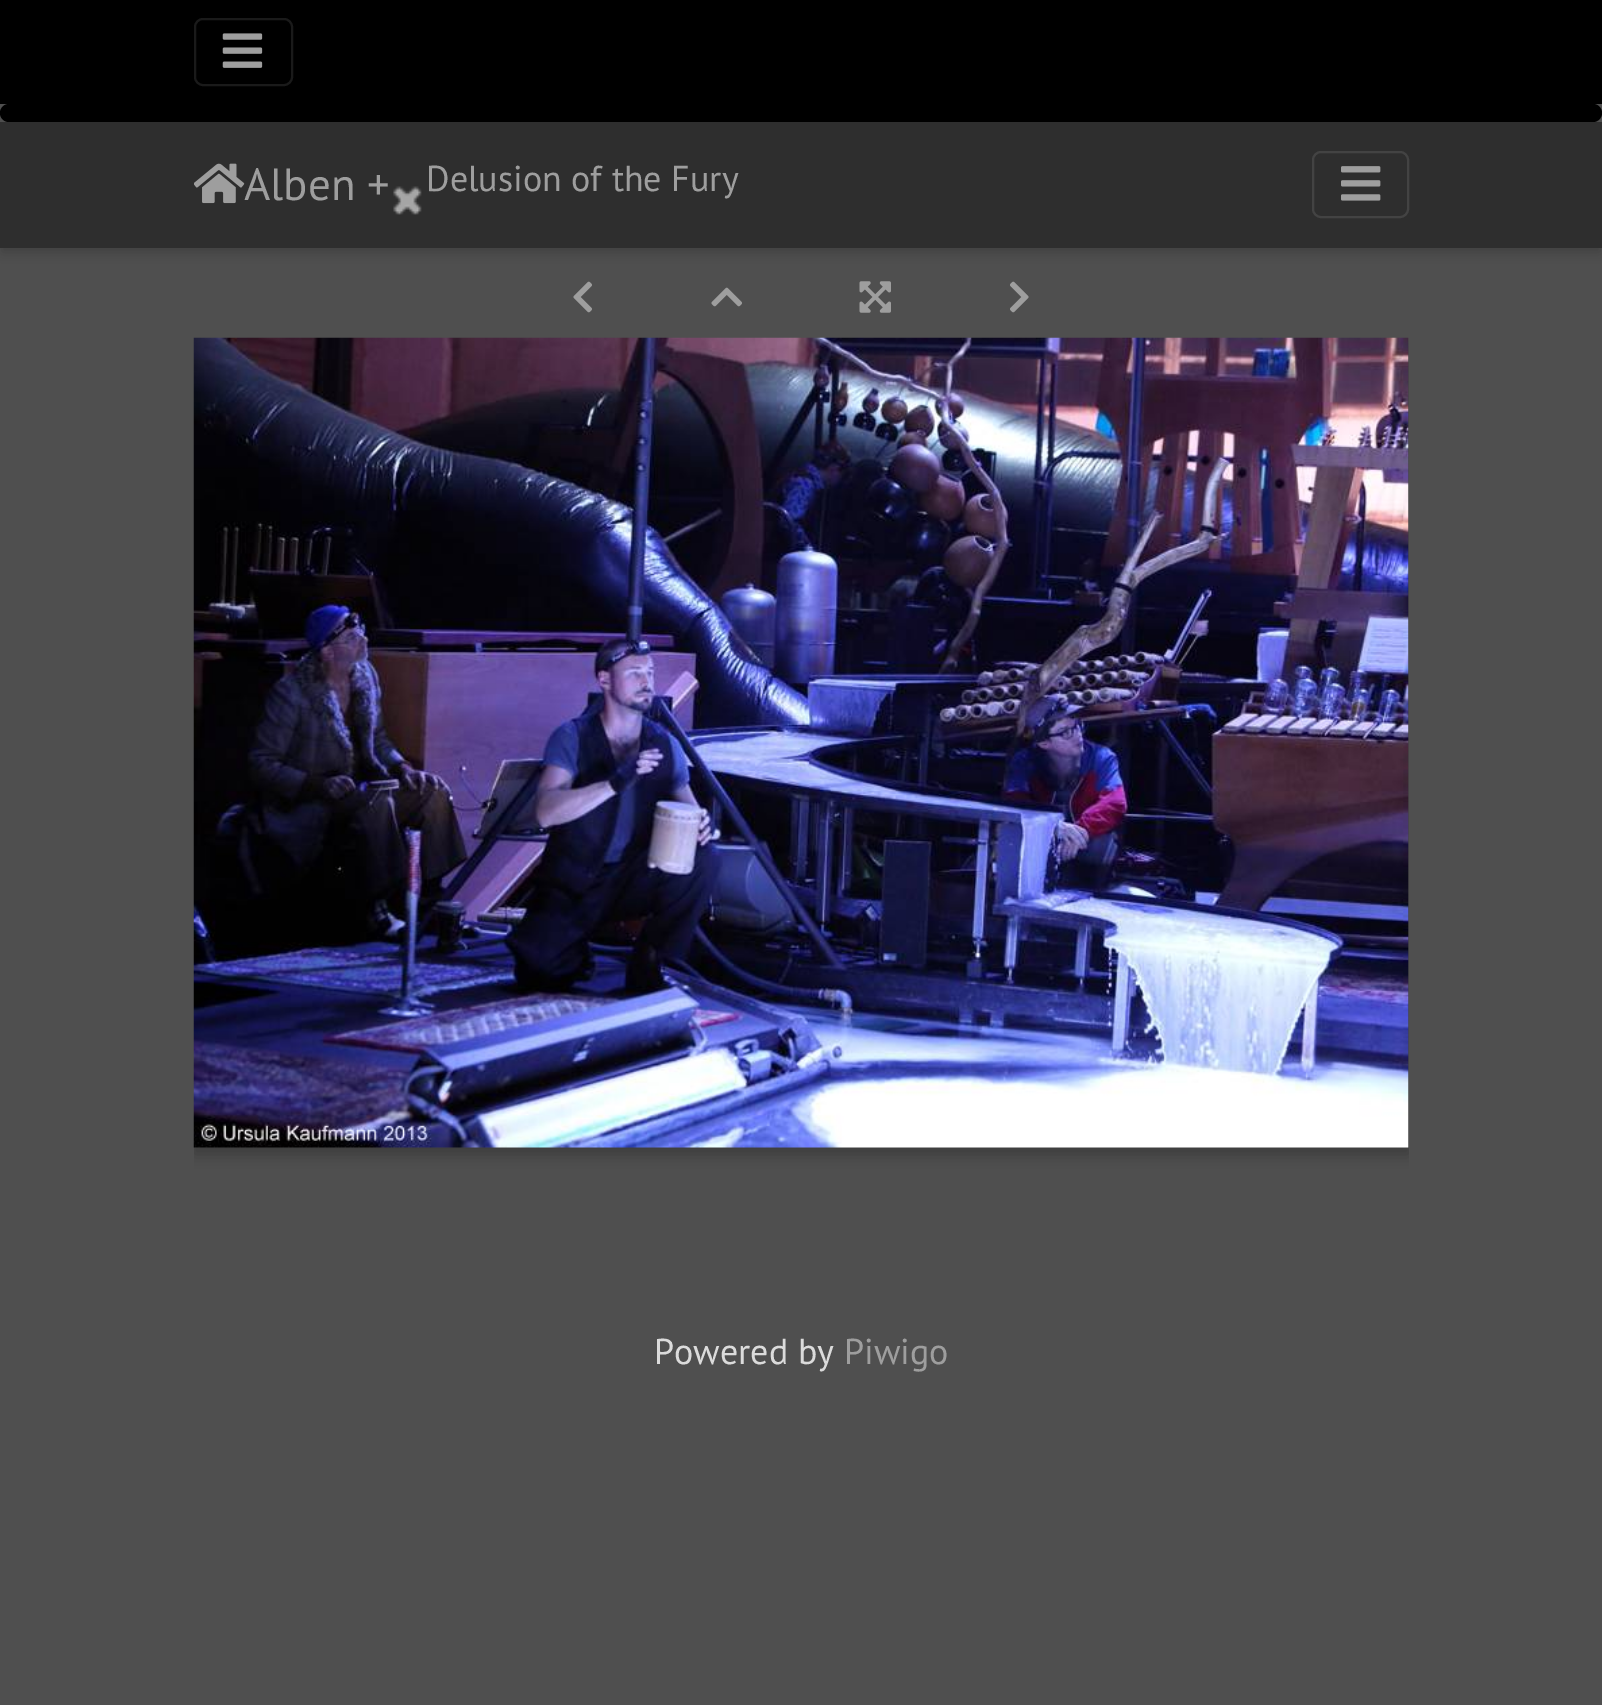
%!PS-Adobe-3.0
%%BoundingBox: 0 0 1602 1705
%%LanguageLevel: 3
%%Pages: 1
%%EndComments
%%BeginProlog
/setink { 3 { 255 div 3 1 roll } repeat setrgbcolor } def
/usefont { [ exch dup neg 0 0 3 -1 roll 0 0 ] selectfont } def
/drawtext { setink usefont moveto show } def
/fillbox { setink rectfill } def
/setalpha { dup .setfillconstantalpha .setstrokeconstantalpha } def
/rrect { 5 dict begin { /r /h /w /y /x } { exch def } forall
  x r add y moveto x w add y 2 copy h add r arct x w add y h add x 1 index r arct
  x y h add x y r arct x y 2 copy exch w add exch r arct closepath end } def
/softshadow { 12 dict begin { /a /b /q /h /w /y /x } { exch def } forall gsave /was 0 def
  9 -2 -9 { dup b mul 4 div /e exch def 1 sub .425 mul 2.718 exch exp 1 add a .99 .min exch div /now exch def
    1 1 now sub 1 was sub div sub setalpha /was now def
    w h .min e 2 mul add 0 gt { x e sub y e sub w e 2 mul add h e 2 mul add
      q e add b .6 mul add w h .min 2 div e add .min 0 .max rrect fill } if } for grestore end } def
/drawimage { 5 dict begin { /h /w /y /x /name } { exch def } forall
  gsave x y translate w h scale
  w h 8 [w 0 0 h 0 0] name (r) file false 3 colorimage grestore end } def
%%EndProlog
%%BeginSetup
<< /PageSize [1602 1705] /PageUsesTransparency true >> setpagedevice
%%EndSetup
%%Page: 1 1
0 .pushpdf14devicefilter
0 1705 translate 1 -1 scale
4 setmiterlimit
0 0 1602 1705 79 79 79 fillbox
0 0 1602 104 0 0 0 fillbox
26 26 26 setink
2 setlinewidth
195 19 97 66 8 rrect stroke
(assets/img1.rgb) 222 33 41 35 drawimage
0 0 0 setink
0 104 1602 18 9 rrect fill
2 131 1598 121 0 5.5 0.2 softshadow
0 122 1602 126 46 46 46 fillbox
(Alben +) 244 200 /PTSans-Regular 45 158 158 158 drawtext
(assets/img2.rgb) 194 163 51 41 drawimage
(assets/img3.rgb) 393 186 29 29 drawimage
(Delusion of the Fury) 426 191 /PTSans-Regular 36 158 158 158 drawtext
67 67 67 setink
1313 152 95 65 8 rrect stroke
(assets/img4.rgb) 1341 166 40 35 drawimage
(assets/img5.rgb) 573 281 19 32 drawimage
(assets/img6.rgb) 711 287 31 20 drawimage
(assets/img7.rgb) 859 281 32 32 drawimage
(assets/img8.rgb) 1010 281 19 32 drawimage
gsave
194 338 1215 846 rectclip
0 0 0 setink
194 344 1215 810 0 7 0.23 softshadow
grestore
(assets/img9.rgb) 193 337 1216 811 drawimage
(Powered by) 654 1364 /PTSans-Regular 36 219 219 219 drawtext
(Piwigo) 844 1364 /PTSans-Regular 36 158 158 158 drawtext
.poppdf14devicefilter showpage
%%EOF
